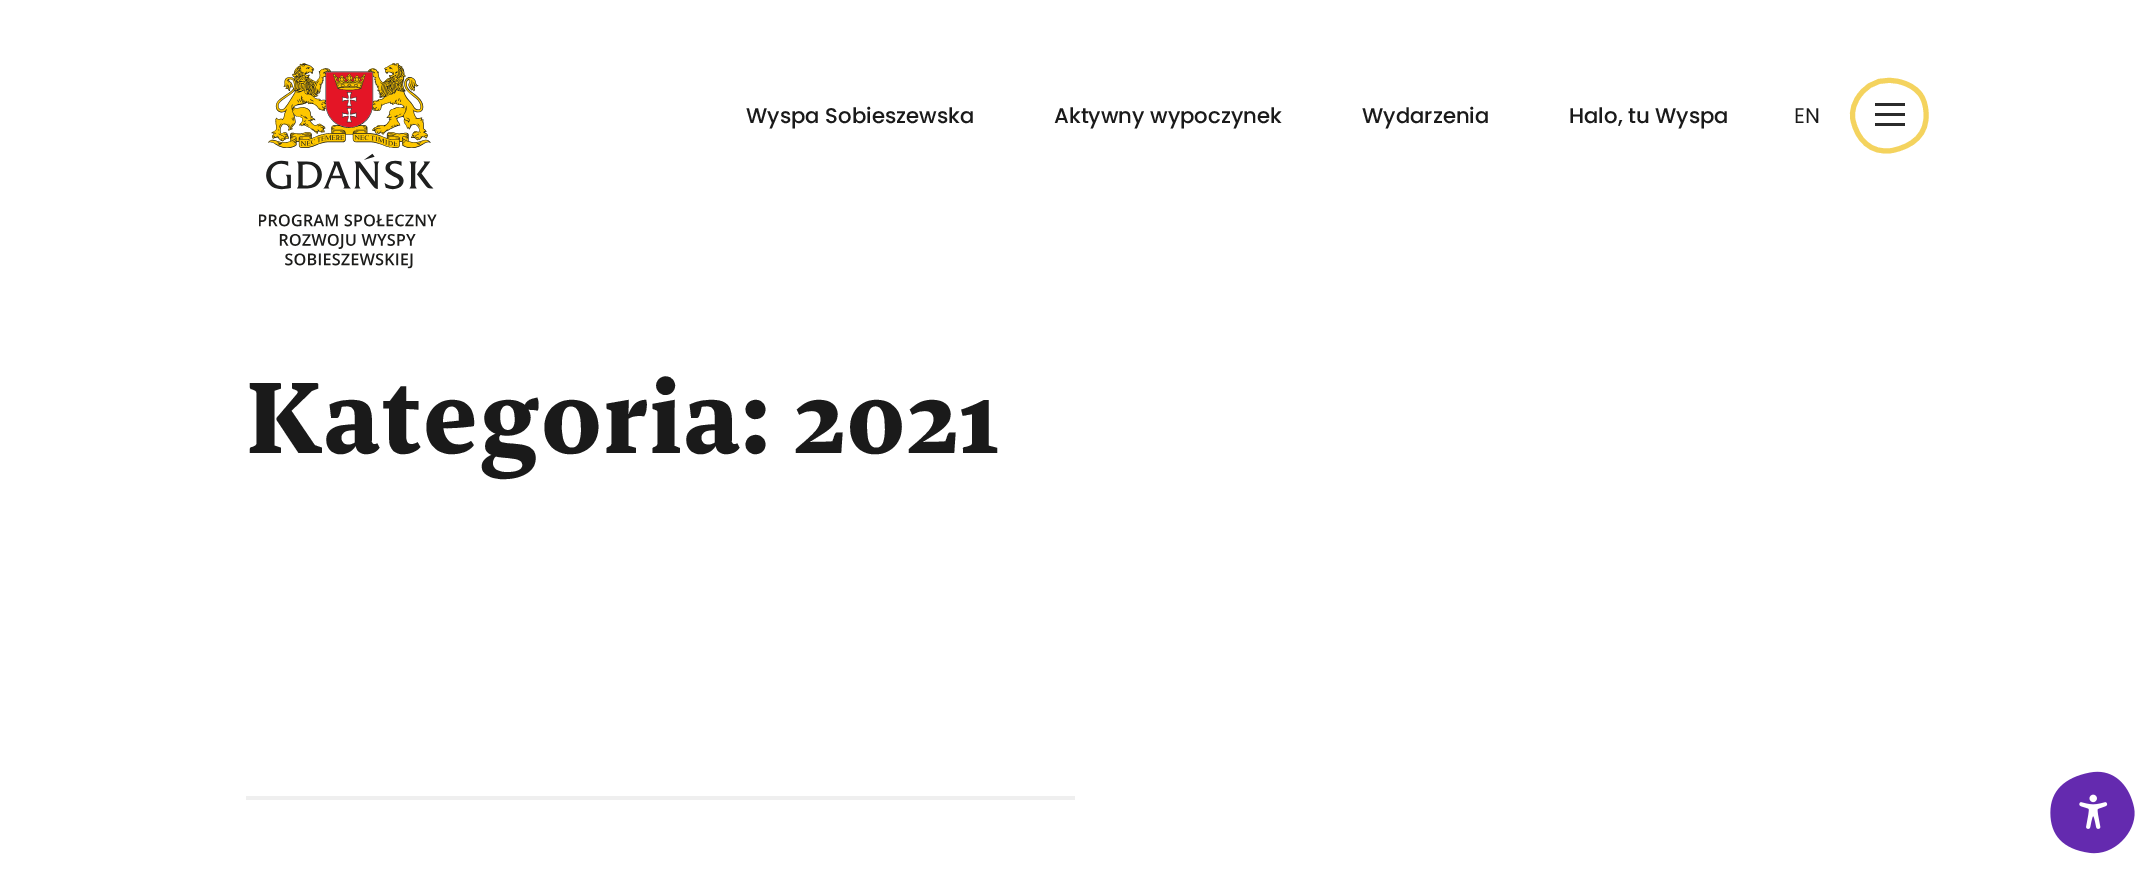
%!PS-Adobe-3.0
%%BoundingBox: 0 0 2149 870
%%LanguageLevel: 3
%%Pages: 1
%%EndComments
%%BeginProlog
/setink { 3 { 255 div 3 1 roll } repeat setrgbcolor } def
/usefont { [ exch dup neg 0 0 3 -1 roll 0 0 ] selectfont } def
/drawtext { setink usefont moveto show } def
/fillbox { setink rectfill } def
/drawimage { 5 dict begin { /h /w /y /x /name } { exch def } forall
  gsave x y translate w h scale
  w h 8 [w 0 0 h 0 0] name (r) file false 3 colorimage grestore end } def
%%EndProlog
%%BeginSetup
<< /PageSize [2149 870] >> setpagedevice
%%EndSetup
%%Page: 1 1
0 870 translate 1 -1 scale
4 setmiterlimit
0 0 2149 870 255 255 255 fillbox
(assets/img1.rgb) 259 63 178 206 drawimage
(Wyspa Sobieszewska) 746 123 /Poppins-Medium 21.25 26 26 26 drawtext
(Aktywny wypoczynek) 1054 123 /Poppins-Medium 21.25 26 26 26 drawtext
(Wydarzenia) 1362 123 /Poppins-Medium 21.25 26 26 26 drawtext
(Halo, tu Wyspa) 1569 123 /Poppins-Medium 21.25 26 26 26 drawtext
(EN) 1794 123 /Poppins-Regular 21.25 26 26 26 drawtext
1875 103 30 3 43 43 43 fillbox
1875 113 30 3 43 43 43 fillbox
1875 123 30 3 43 43 43 fillbox
244 211 94 setink
5 setlinewidth
1853 120 moveto 1851 111 1854.5 101 1861 93.5 curveto 1853 120 moveto 1857 139.5 1871 154 1892 150.5 curveto 1861 93.5 moveto 1871.5 80.5 1885.5 78 1900.5 82 curveto 1908 84 1915 87.5 1920 94 curveto 1924 99 1925.5 105.5 1926 112 curveto 1928 134.5 1912.5 146.5 1892 150.5 curveto stroke
(Kategoria: 2021) 246 453 /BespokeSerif-Bold 100 26 26 26 drawtext
246 796 829 4 239 239 239 fillbox
(assets/img2.rgb) 2050 771 85 83 drawimage
showpage
%%EOF
